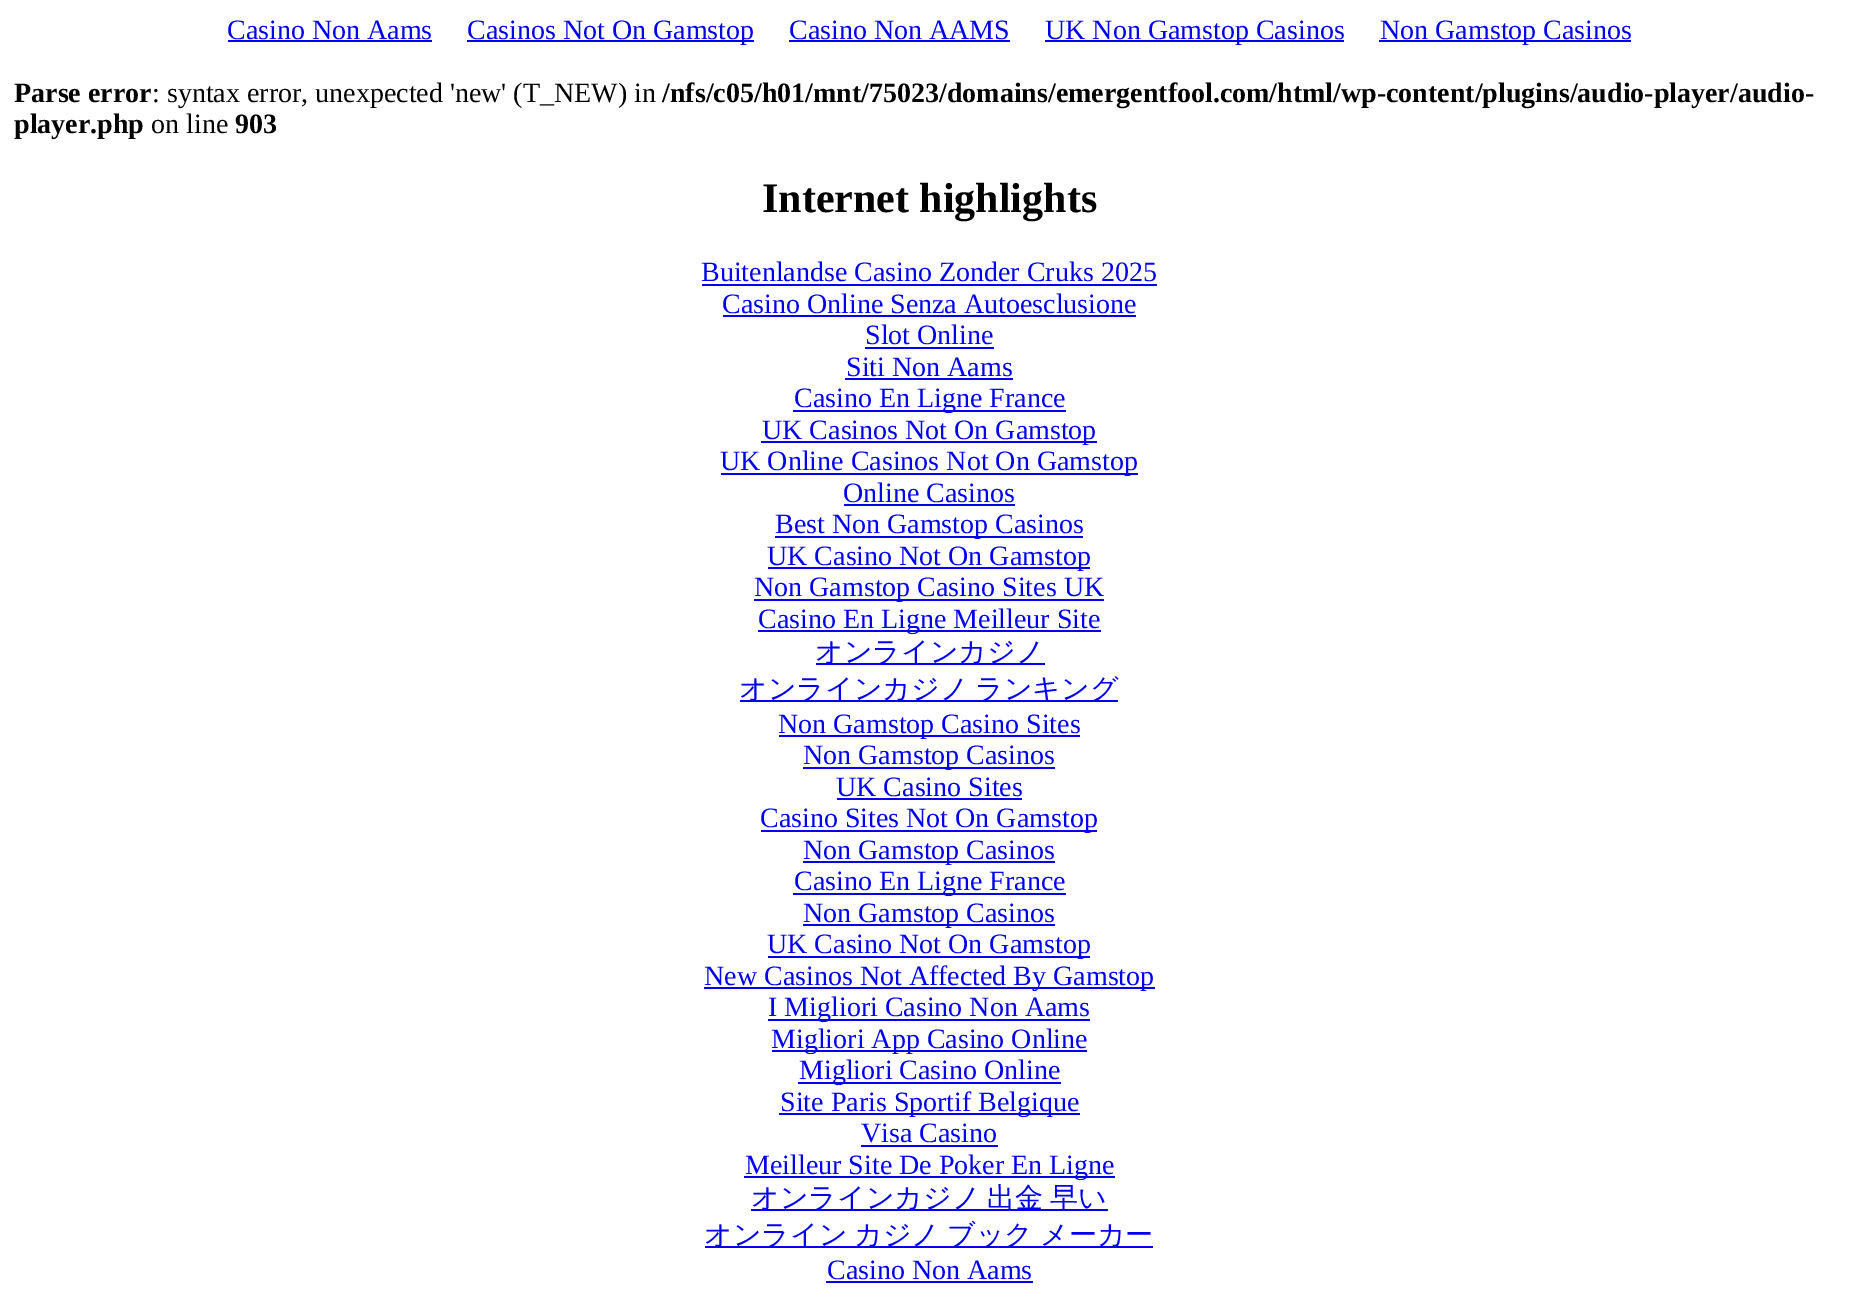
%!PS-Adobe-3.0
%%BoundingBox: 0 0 1858 1304
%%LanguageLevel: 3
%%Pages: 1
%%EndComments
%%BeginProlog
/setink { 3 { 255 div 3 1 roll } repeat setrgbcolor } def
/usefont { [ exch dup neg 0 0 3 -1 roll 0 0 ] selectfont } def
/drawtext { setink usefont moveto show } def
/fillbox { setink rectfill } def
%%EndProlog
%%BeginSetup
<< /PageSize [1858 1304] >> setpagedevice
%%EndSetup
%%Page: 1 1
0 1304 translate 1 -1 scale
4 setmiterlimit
0 0 1858 1304 255 255 255 fillbox
(Casino Non Aams) 227 39 /LiberationSerif-Regular 28 0 0 238 drawtext
228 40 204 2 0 0 238 fillbox
467 40 287 2 0 0 238 fillbox
(Casinos Not On Gamstop) 467 39 /LiberationSerif-Regular 28 0 0 238 drawtext
(Casino Non AAMS) 789 39 /LiberationSerif-Regular 28 0 0 238 drawtext
789 40 221 2 0 0 238 fillbox
1045 40 299 2 0 0 238 fillbox
(UK Non Gamstop Casinos) 1045 39 /LiberationSerif-Regular 28 0 0 238 drawtext
1379 40 252 2 0 0 238 fillbox
(Non Gamstop Casinos) 1380 39 /LiberationSerif-Regular 28 0 0 238 drawtext
(Parse error) 14 102 /LiberationSerif-Bold 28 0 0 0 drawtext
(: syntax error, unexpected 'new' \(T_NEW\) in) 152 102 /LiberationSerif-Regular 28 0 0 0 drawtext
(/nfs/c05/h01/mnt/75023/domains/emergentfool.com/html/wp-content/plugins/audio-player/audio-) 662 102 /LiberationSerif-Bold 28 0 0 0 drawtext
(player.php) 14 133 /LiberationSerif-Bold 28 0 0 0 drawtext
(on line) 151 133 /LiberationSerif-Regular 28 0 0 0 drawtext
(903) 235 133 /LiberationSerif-Bold 28 0 0 0 drawtext
(Internet highlights) 762 212 /LiberationSerif-Bold 42 0 0 0 drawtext
(Buitenlandse Casino Zonder Cruks 2025) 701 281 /LiberationSerif-Regular 28 0 0 238 drawtext
702 284 455 2 0 0 238 fillbox
(Casino Online Senza Autoesclusione) 722 313 /LiberationSerif-Regular 28 0 0 238 drawtext
723 315 413 2 0 0 238 fillbox
(Slot Online) 865 344 /LiberationSerif-Regular 28 0 0 238 drawtext
865 347 129 2 0 0 238 fillbox
(Siti Non Aams) 846 376 /LiberationSerif-Regular 28 0 0 238 drawtext
845 378 168 2 0 0 238 fillbox
793 410 273 2 0 0 238 fillbox
(Casino En Ligne France) 794 407 /LiberationSerif-Regular 28 0 0 238 drawtext
761 441 336 2 0 0 238 fillbox
(UK Casinos Not On Gamstop) 762 439 /LiberationSerif-Regular 28 0 0 238 drawtext
721 473 417 2 0 0 238 fillbox
(UK Online Casinos Not On Gamstop) 720 470 /LiberationSerif-Regular 28 0 0 238 drawtext
(Online Casinos) 843 502 /LiberationSerif-Regular 28 0 0 238 drawtext
844 504 171 2 0 0 238 fillbox
775 536 308 2 0 0 238 fillbox
(Best Non Gamstop Casinos) 775 533 /LiberationSerif-Regular 28 0 0 238 drawtext
768 567 322 2 0 0 238 fillbox
(UK Casino Not On Gamstop) 767 565 /LiberationSerif-Regular 28 0 0 238 drawtext
754 599 350 2 0 0 238 fillbox
(Non Gamstop Casino Sites UK) 754 596 /LiberationSerif-Regular 28 0 0 238 drawtext
758 630 343 2 0 0 238 fillbox
(Casino En Ligne Meilleur Site) 758 628 /LiberationSerif-Regular 28 0 0 238 drawtext
816 663 229 2 0 0 238 fillbox
(オンラインカジノ) 815 661 /WenQuanYiZenHei-Medium 28 0 0 238 drawtext
740 700 378 2 0 0 238 fillbox
739 698 moveto -1.5 0 32 (オンラインカジノ ランキング) widthshow
779 735 301 2 0 0 238 fillbox
(Non Gamstop Casino Sites) 778 733 /LiberationSerif-Regular 28 0 0 238 drawtext
803 767 252 2 0 0 238 fillbox
(Non Gamstop Casinos) 803 764 /LiberationSerif-Regular 28 0 0 238 drawtext
(UK Casino Sites) 836 796 /LiberationSerif-Regular 28 0 0 238 drawtext
837 798 185 2 0 0 238 fillbox
761 830 336 2 0 0 238 fillbox
(Casino Sites Not On Gamstop) 760 827 /LiberationSerif-Regular 28 0 0 238 drawtext
803 861 252 2 0 0 238 fillbox
(Non Gamstop Casinos) 803 859 /LiberationSerif-Regular 28 0 0 238 drawtext
793 893 273 2 0 0 238 fillbox
(Casino En Ligne France) 794 890 /LiberationSerif-Regular 28 0 0 238 drawtext
803 924 252 2 0 0 238 fillbox
(Non Gamstop Casinos) 803 922 /LiberationSerif-Regular 28 0 0 238 drawtext
768 956 322 2 0 0 238 fillbox
(UK Casino Not On Gamstop) 767 953 /LiberationSerif-Regular 28 0 0 238 drawtext
704 987 451 2 0 0 238 fillbox
(New Casinos Not Affected By Gamstop) 704 985 /LiberationSerif-Regular 28 0 0 238 drawtext
768 1019 322 2 0 0 238 fillbox
(I Migliori Casino Non Aams) 768 1016 /LiberationSerif-Regular 28 0 0 238 drawtext
772 1050 315 2 0 0 238 fillbox
(Migliori App Casino Online) 771 1048 /LiberationSerif-Regular 28 0 0 238 drawtext
798 1082 263 2 0 0 238 fillbox
(Migliori Casino Online) 799 1079 /LiberationSerif-Regular 28 0 0 238 drawtext
779 1113 301 2 0 0 238 fillbox
(Site Paris Sportif Belgique) 780 1111 /LiberationSerif-Regular 28 0 0 238 drawtext
(Visa Casino) 861 1142 /LiberationSerif-Regular 28 0 0 238 drawtext
861 1145 137 2 0 0 238 fillbox
744 1176 371 2 0 0 238 fillbox
(Meilleur Site De Poker En Ligne) 745 1174 /LiberationSerif-Regular 28 0 0 238 drawtext
751 1209 357 2 0 0 238 fillbox
/WenQuanYiZenHei-Medium 28 usefont
751 1207 moveto -1.5 0 32 (オンラインカジノ 出金 早い) widthshow
705 1246 448 2 0 0 238 fillbox
704 1244 moveto -1.5 0 32 (オンライン カジノ ブック メーカー) widthshow
(Casino Non Aams) 827 1279 /LiberationSerif-Regular 28 0 0 238 drawtext
826 1281 207 2 0 0 238 fillbox
showpage
%%EOF
